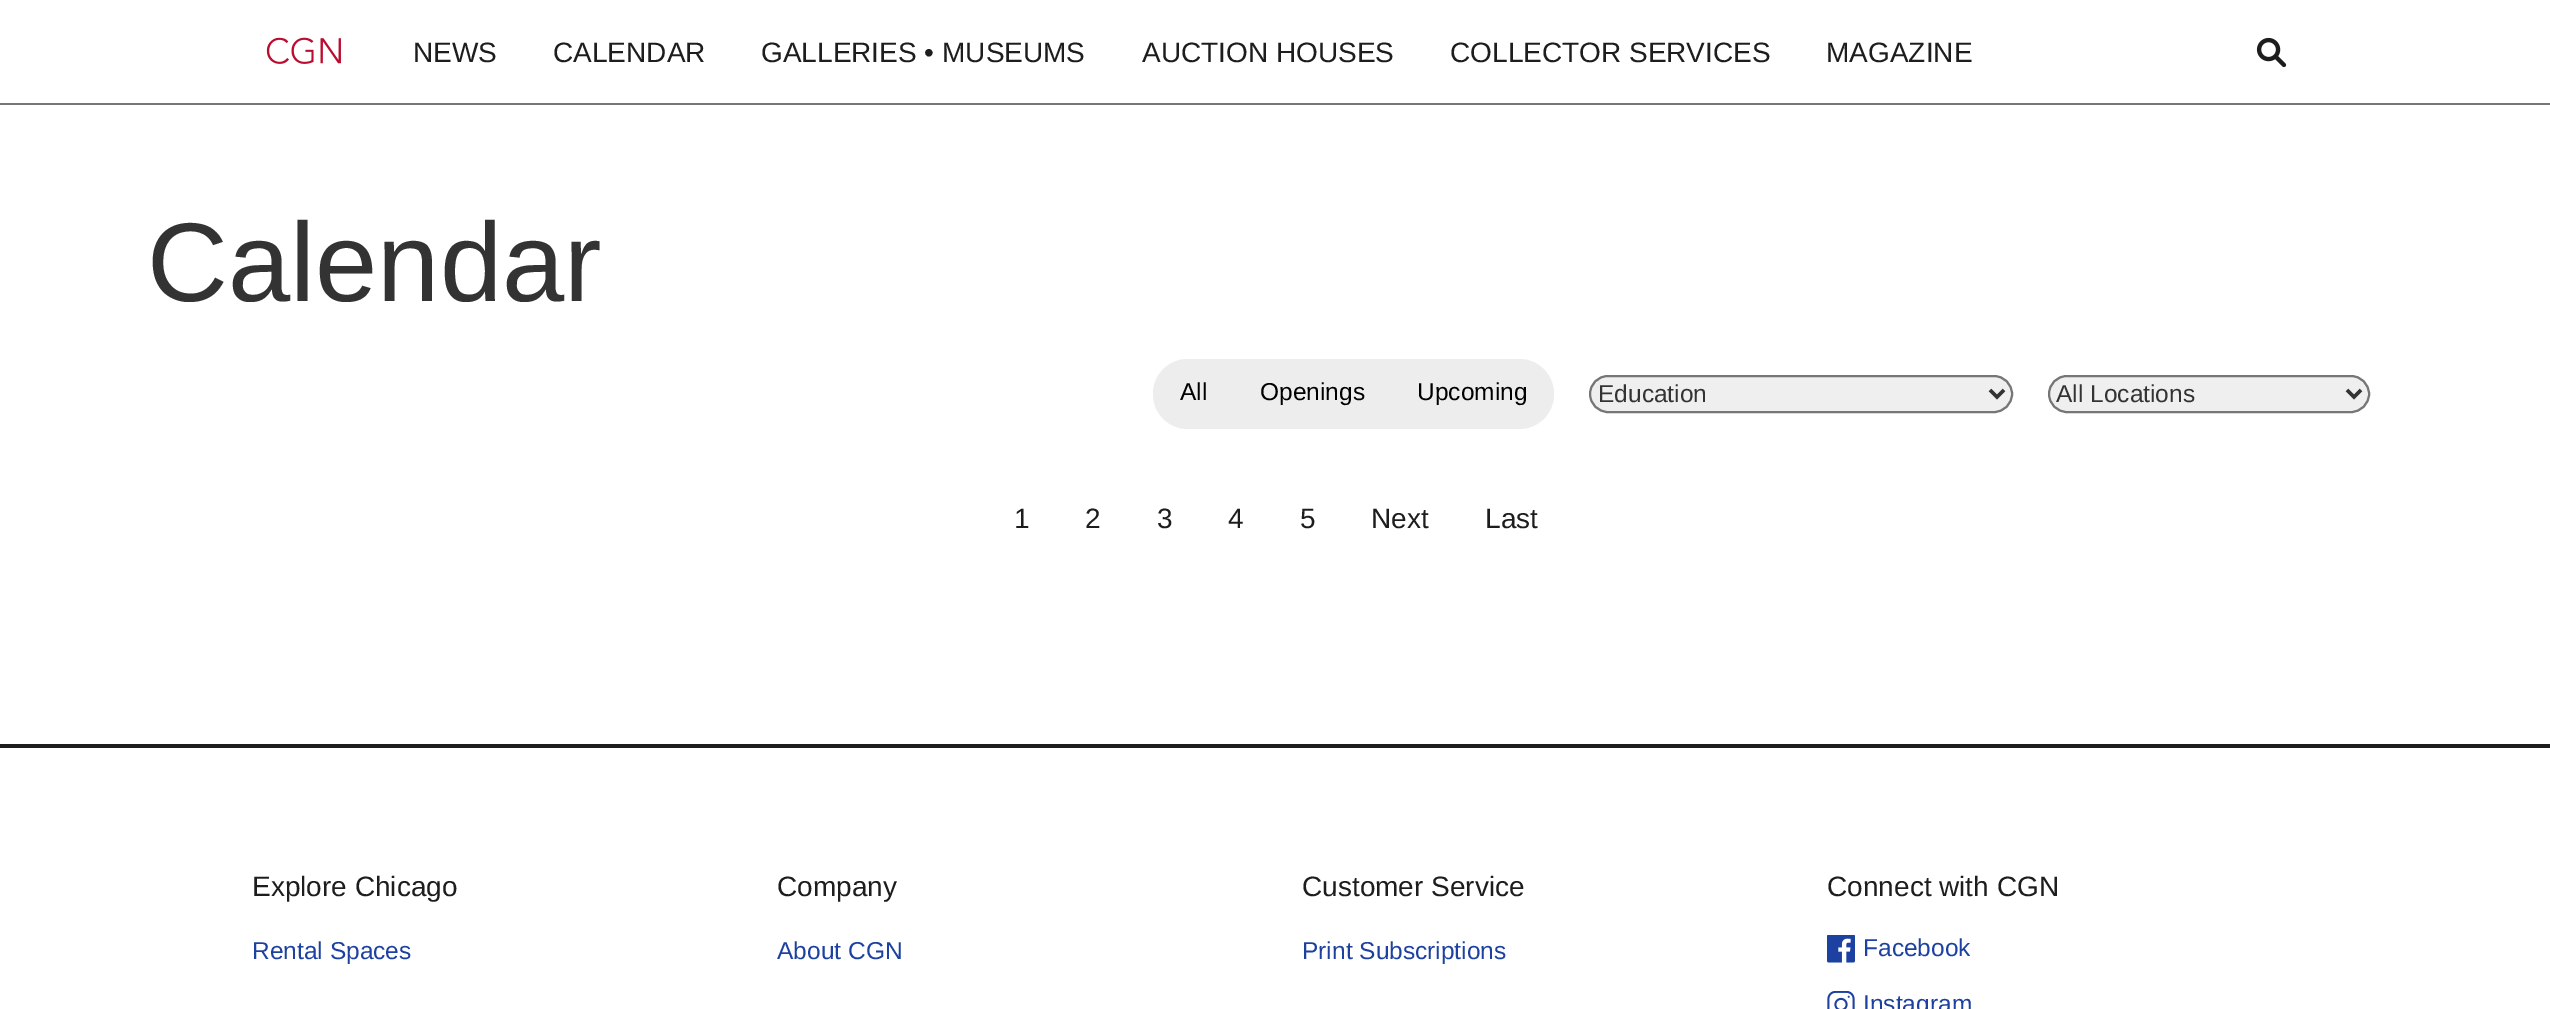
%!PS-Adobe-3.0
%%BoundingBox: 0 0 2550 1009
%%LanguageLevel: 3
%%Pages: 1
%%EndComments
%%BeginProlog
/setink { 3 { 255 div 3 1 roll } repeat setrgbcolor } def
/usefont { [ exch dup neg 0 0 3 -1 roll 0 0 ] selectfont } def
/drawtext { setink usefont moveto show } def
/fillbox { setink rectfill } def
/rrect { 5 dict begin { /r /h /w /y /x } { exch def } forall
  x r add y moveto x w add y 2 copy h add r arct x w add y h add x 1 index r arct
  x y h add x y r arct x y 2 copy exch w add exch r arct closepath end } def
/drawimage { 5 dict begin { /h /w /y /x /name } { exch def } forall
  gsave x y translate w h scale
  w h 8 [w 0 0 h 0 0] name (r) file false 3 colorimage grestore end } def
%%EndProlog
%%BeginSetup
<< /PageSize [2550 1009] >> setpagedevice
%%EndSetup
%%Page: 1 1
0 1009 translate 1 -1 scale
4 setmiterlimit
0 0 2550 1009 255 255 255 fillbox
0 103 2550 2 118 118 118 fillbox
(assets/img1.rgb) 266 37 75 27 drawimage
(NEWS) 413 62 /LiberationSans-Regular 28 29 29 29 drawtext
(CALENDAR) 553 62 /LiberationSans-Regular 28 29 29 29 drawtext
(GALLERIES • MUSEUMS) 761 62 /LiberationSans-Regular 28 29 29 29 drawtext
(AUCTION HOUSES) 1142 62 /LiberationSans-Regular 28 29 29 29 drawtext
(COLLECTOR SERVICES) 1450 62 /LiberationSans-Regular 28 29 29 29 drawtext
(MAGAZINE) 1826 62 /LiberationSans-Regular 28 29 29 29 drawtext
(assets/img2.rgb) 2256 37 31 31 drawimage
(Calendar) 147 301 /LiberationSans-Regular 112 51 51 51 drawtext
237 237 238 setink
1188 359 moveto 1234 359 lineto 1234 429 lineto 1188 429 lineto 1168.5 429 1153 413.5 1153 394 curveto 1153 374.5 1168.5 359 1188 359 curveto closepath fill
(All) 1180 400 /LiberationSans-Regular 24.5 0 0 0 drawtext
1234 359 157 70 237 237 238 fillbox
(Openings) 1260 400 /LiberationSans-Regular 24.5 0 0 0 drawtext
237 237 238 setink
1391 359 moveto 1519 359 lineto 1538.5 359 1554 374.5 1554 394 curveto 1554 413.5 1538.5 429 1519 429 curveto 1391 429 lineto closepath fill
(Upcoming) 1417 400 /LiberationSans-Regular 24.5 0 0 0 drawtext
239 239 239 setink
1590 376 422 36 18 rrect gsave fill grestore
118 118 118 setink
2 setlinewidth
stroke
51 51 51 setink
3.5 setlinewidth
1990 390 moveto 1997 397 lineto 2004 390 lineto stroke
(Education) 1598 402 /LiberationSans-Regular 24.5 51 51 51 drawtext
239 239 239 setink
2049 376 320 36 18 rrect gsave fill grestore
118 118 118 setink
2 setlinewidth
stroke
51 51 51 setink
3.5 setlinewidth
2347 390 moveto 2354 397 lineto 2361 390 lineto stroke
(All Locations) 2056 402 /LiberationSans-Regular 24.5 51 51 51 drawtext
(1) 1014 528 /LiberationSans-Regular 28 29 29 29 drawtext
(2) 1085 528 /LiberationSans-Regular 28 29 29 29 drawtext
(3) 1157 528 /LiberationSans-Regular 28 29 29 29 drawtext
(4) 1228 528 /LiberationSans-Regular 28 29 29 29 drawtext
(5) 1300 528 /LiberationSans-Regular 28 29 29 29 drawtext
(Next) 1371 528 /LiberationSans-Regular 28 29 29 29 drawtext
(Last) 1485 528 /LiberationSans-Regular 28 29 29 29 drawtext
0 744 2550 4 29 29 29 fillbox
(Explore Chicago) 252 896 /LiberationSans-Regular 28 29 29 29 drawtext
(Rental Spaces) 252 959 /LiberationSans-Regular 24.5 29 65 160 drawtext
(Company) 777 896 /LiberationSans-Regular 28 29 29 29 drawtext
(About CGN) 777 959 /LiberationSans-Regular 24.5 29 65 160 drawtext
(Customer Service) 1302 896 /LiberationSans-Regular 28 29 29 29 drawtext
(Print Subscriptions) 1302 959 /LiberationSans-Regular 24.5 29 65 160 drawtext
(Connect with CGN) 1827 896 /LiberationSans-Regular 28 29 29 29 drawtext
(assets/img3.rgb) 1827 935 28 28 drawimage
(Facebook) 1863 956 /LiberationSans-Regular 24.5 29 65 160 drawtext
(assets/img4.rgb) 1827 991 28 18 drawimage
(Instagram) 1863 1012 /LiberationSans-Regular 24.5 29 65 160 drawtext
showpage
%%EOF
